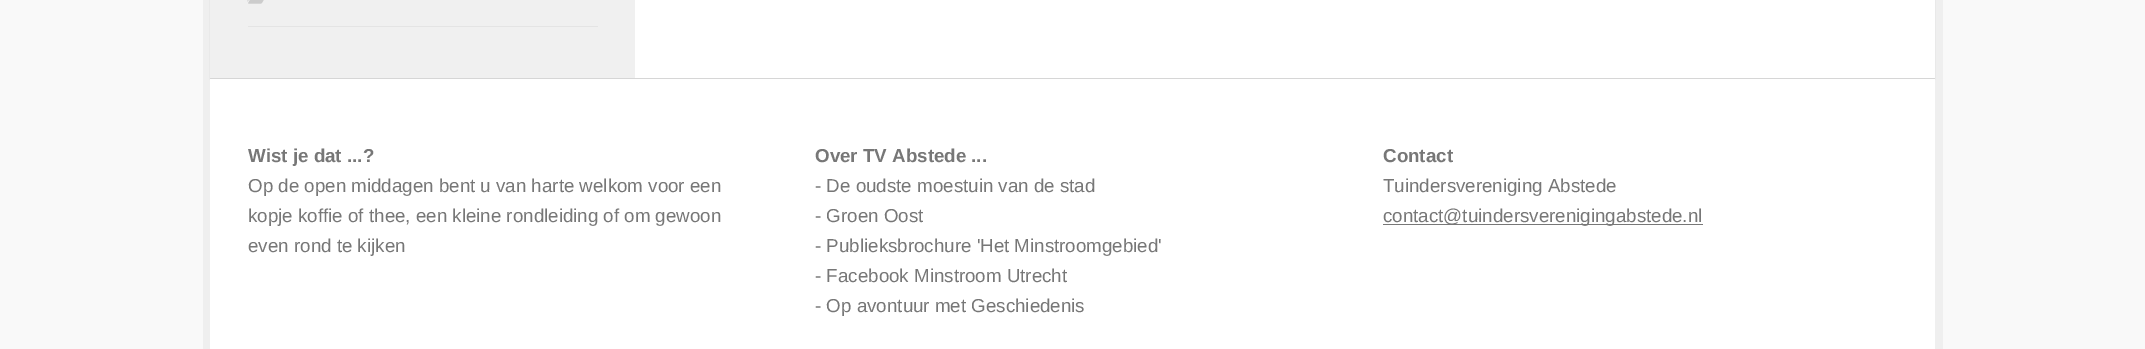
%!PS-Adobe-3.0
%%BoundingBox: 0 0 2145 349
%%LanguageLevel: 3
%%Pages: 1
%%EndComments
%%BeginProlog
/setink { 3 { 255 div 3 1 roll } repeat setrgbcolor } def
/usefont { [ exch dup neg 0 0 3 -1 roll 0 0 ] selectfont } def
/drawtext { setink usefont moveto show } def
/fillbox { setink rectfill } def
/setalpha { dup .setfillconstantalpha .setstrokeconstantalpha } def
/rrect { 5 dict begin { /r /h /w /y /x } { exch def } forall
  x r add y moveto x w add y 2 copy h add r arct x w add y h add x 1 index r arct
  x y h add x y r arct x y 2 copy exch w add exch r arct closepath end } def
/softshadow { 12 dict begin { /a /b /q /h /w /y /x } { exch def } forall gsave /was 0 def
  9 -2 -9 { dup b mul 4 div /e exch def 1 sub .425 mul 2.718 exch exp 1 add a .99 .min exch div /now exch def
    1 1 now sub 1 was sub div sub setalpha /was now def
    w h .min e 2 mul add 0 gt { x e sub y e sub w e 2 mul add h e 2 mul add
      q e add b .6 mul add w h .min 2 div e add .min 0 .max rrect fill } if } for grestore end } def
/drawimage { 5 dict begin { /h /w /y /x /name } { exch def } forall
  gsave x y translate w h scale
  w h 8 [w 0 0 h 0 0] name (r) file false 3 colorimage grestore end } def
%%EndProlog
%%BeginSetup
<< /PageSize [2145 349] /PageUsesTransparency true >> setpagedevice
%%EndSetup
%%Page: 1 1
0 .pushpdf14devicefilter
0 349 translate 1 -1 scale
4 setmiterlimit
0 0 2145 349 249 249 249 fillbox
203 0 7 349 239 239 239 fillbox
1935 0 8 349 239 239 239 fillbox
210 78 1725 1 234 234 234 fillbox
0 0 0 setink
210 -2 1725 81 0 0.5 0.1 softshadow
635 0 1300 78 255 255 255 fillbox
210 0 425 78 240 240 240 fillbox
248 26 350 1 228 228 228 fillbox
(assets/img1.rgb) 247 0 17 4 drawimage
210 79 1725 270 255 255 255 fillbox
(Wist je dat ...?) 248 162 /LiberationSans-Bold 18.75 119 119 119 drawtext
(Op de open middagen bent u van harte welkom voor een) 248 192 /LiberationSans-Regular 18.75 119 119 119 drawtext
(kopje koffie of thee, een kleine rondleiding of om gewoon) 248 222 /LiberationSans-Regular 18.75 119 119 119 drawtext
(even rond te kijken) 248 252 /LiberationSans-Regular 18.75 119 119 119 drawtext
(Over TV Abstede ...) 815 162 /LiberationSans-Bold 18.75 119 119 119 drawtext
(- De oudste moestuin van de stad) 815 192 /LiberationSans-Regular 18.75 119 119 119 drawtext
(- Groen Oost) 815 222 /LiberationSans-Regular 18.75 119 119 119 drawtext
(- Publieksbrochure 'Het Minstroomgebied') 815 252 /LiberationSans-Regular 18.75 119 119 119 drawtext
(- Facebook Minstroom Utrecht) 815 282 /LiberationSans-Regular 18.75 119 119 119 drawtext
(- Op avontuur met Geschiedenis) 815 312 /LiberationSans-Regular 18.75 119 119 119 drawtext
(Contact) 1383 162 /LiberationSans-Bold 18.75 119 119 119 drawtext
(Tuindersvereniging Abstede) 1383 192 /LiberationSans-Regular 18.75 119 119 119 drawtext
1383 224 320 1 119 119 119 fillbox
(contact@tuindersverenigingabstede.nl) 1383 222 /LiberationSans-Regular 18.75 119 119 119 drawtext
.poppdf14devicefilter showpage
%%EOF
